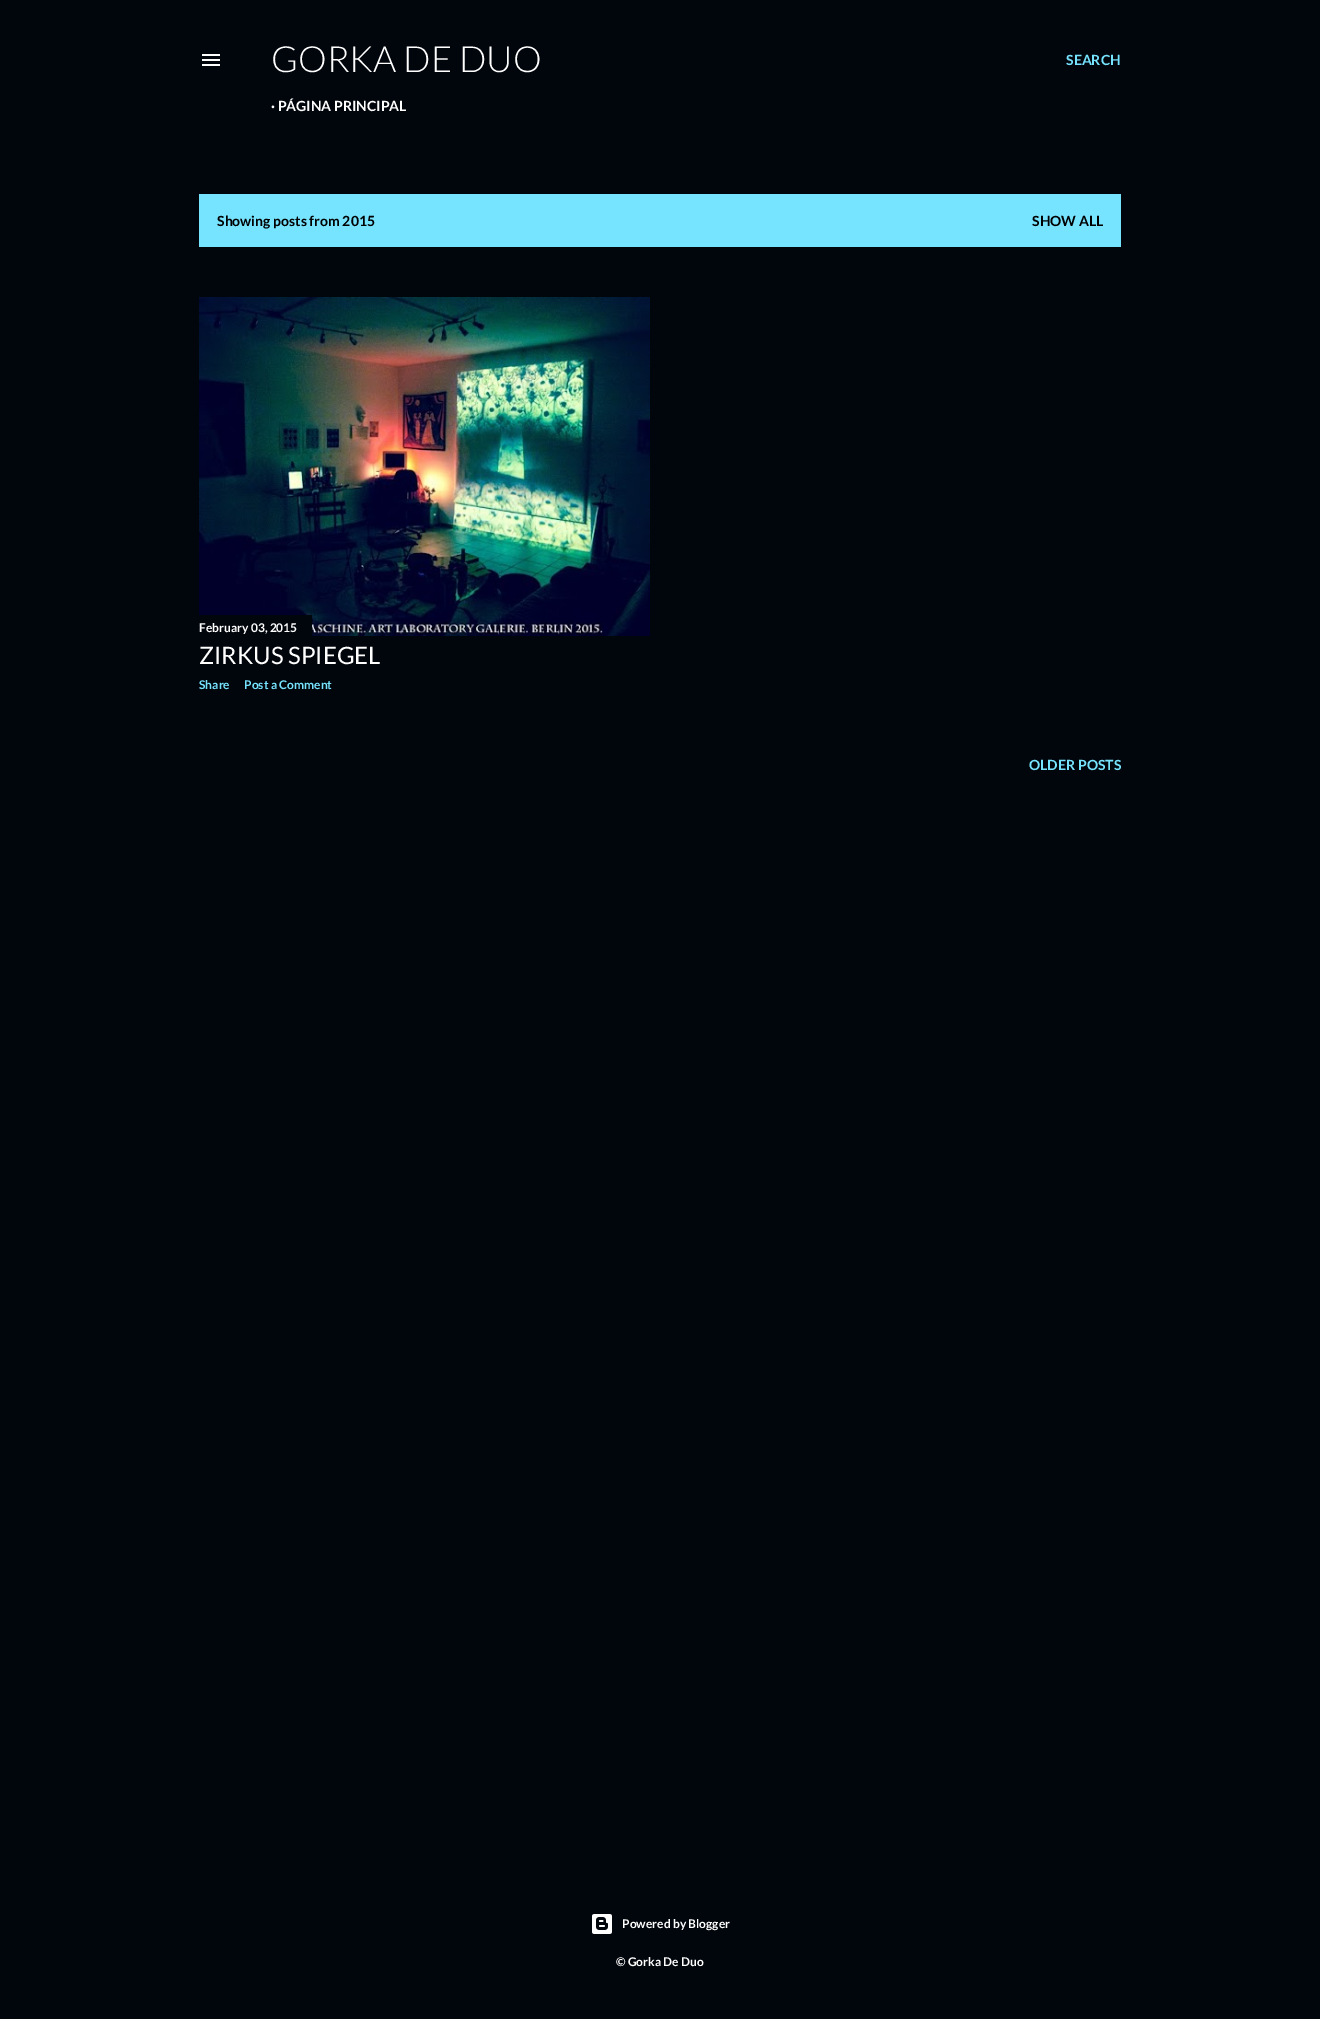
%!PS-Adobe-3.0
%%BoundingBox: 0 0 1320 2019
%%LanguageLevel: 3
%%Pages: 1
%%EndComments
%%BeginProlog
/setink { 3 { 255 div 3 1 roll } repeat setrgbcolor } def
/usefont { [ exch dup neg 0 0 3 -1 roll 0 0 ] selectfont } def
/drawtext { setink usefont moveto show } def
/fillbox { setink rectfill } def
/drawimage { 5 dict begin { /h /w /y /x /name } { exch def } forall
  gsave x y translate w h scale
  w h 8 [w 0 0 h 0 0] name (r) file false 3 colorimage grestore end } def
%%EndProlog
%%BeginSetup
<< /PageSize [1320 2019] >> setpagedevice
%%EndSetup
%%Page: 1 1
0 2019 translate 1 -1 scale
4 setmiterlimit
0 0 1320 2019 1 5 12 fillbox
(assets/img1.rgb) 202 54 18 12 drawimage
(GORKA DE DUO) 271 72 /Lato-Light 36 255 255 255 drawtext
(· PÁGINA PRINCIPAL) 271 111 /Lato-Bold 14 255 255 255 drawtext
(SEARCH) 1066 65 /Lato-Bold 14 119 228 255 drawtext
199 194 922 53 119 228 255 fillbox
(Showing posts from 2015) 217 226 /Lato-Bold 14 0 0 0 drawtext
(SHOW ALL) 1032 226 /Lato-Bold 14 0 0 0 drawtext
(assets/img2.rgb) 199 297 451 339 drawimage
199 615 113 21 1 5 12 fillbox
(February 03, 2015) 199 632 /Lato-Bold 12 255 255 255 drawtext
(ZIRKUS SPIEGEL) 199 664 /Lato-Regular 24 255 255 255 drawtext
(Share) 199 689 /Lato-Bold 12 119 228 255 drawtext
(Post a Comment) 244 689 /Lato-Bold 12 119 228 255 drawtext
(OLDER POSTS) 1029 770 /Lato-Bold 14 119 228 255 drawtext
(assets/img3.rgb) 592 1914 20 20 drawimage
(Powered by Blogger) 622 1928 /Lato-Bold 12 255 255 255 drawtext
(© Gorka De Duo) 616 1966 /Lato-Bold 12 255 255 255 drawtext
showpage
%%EOF
